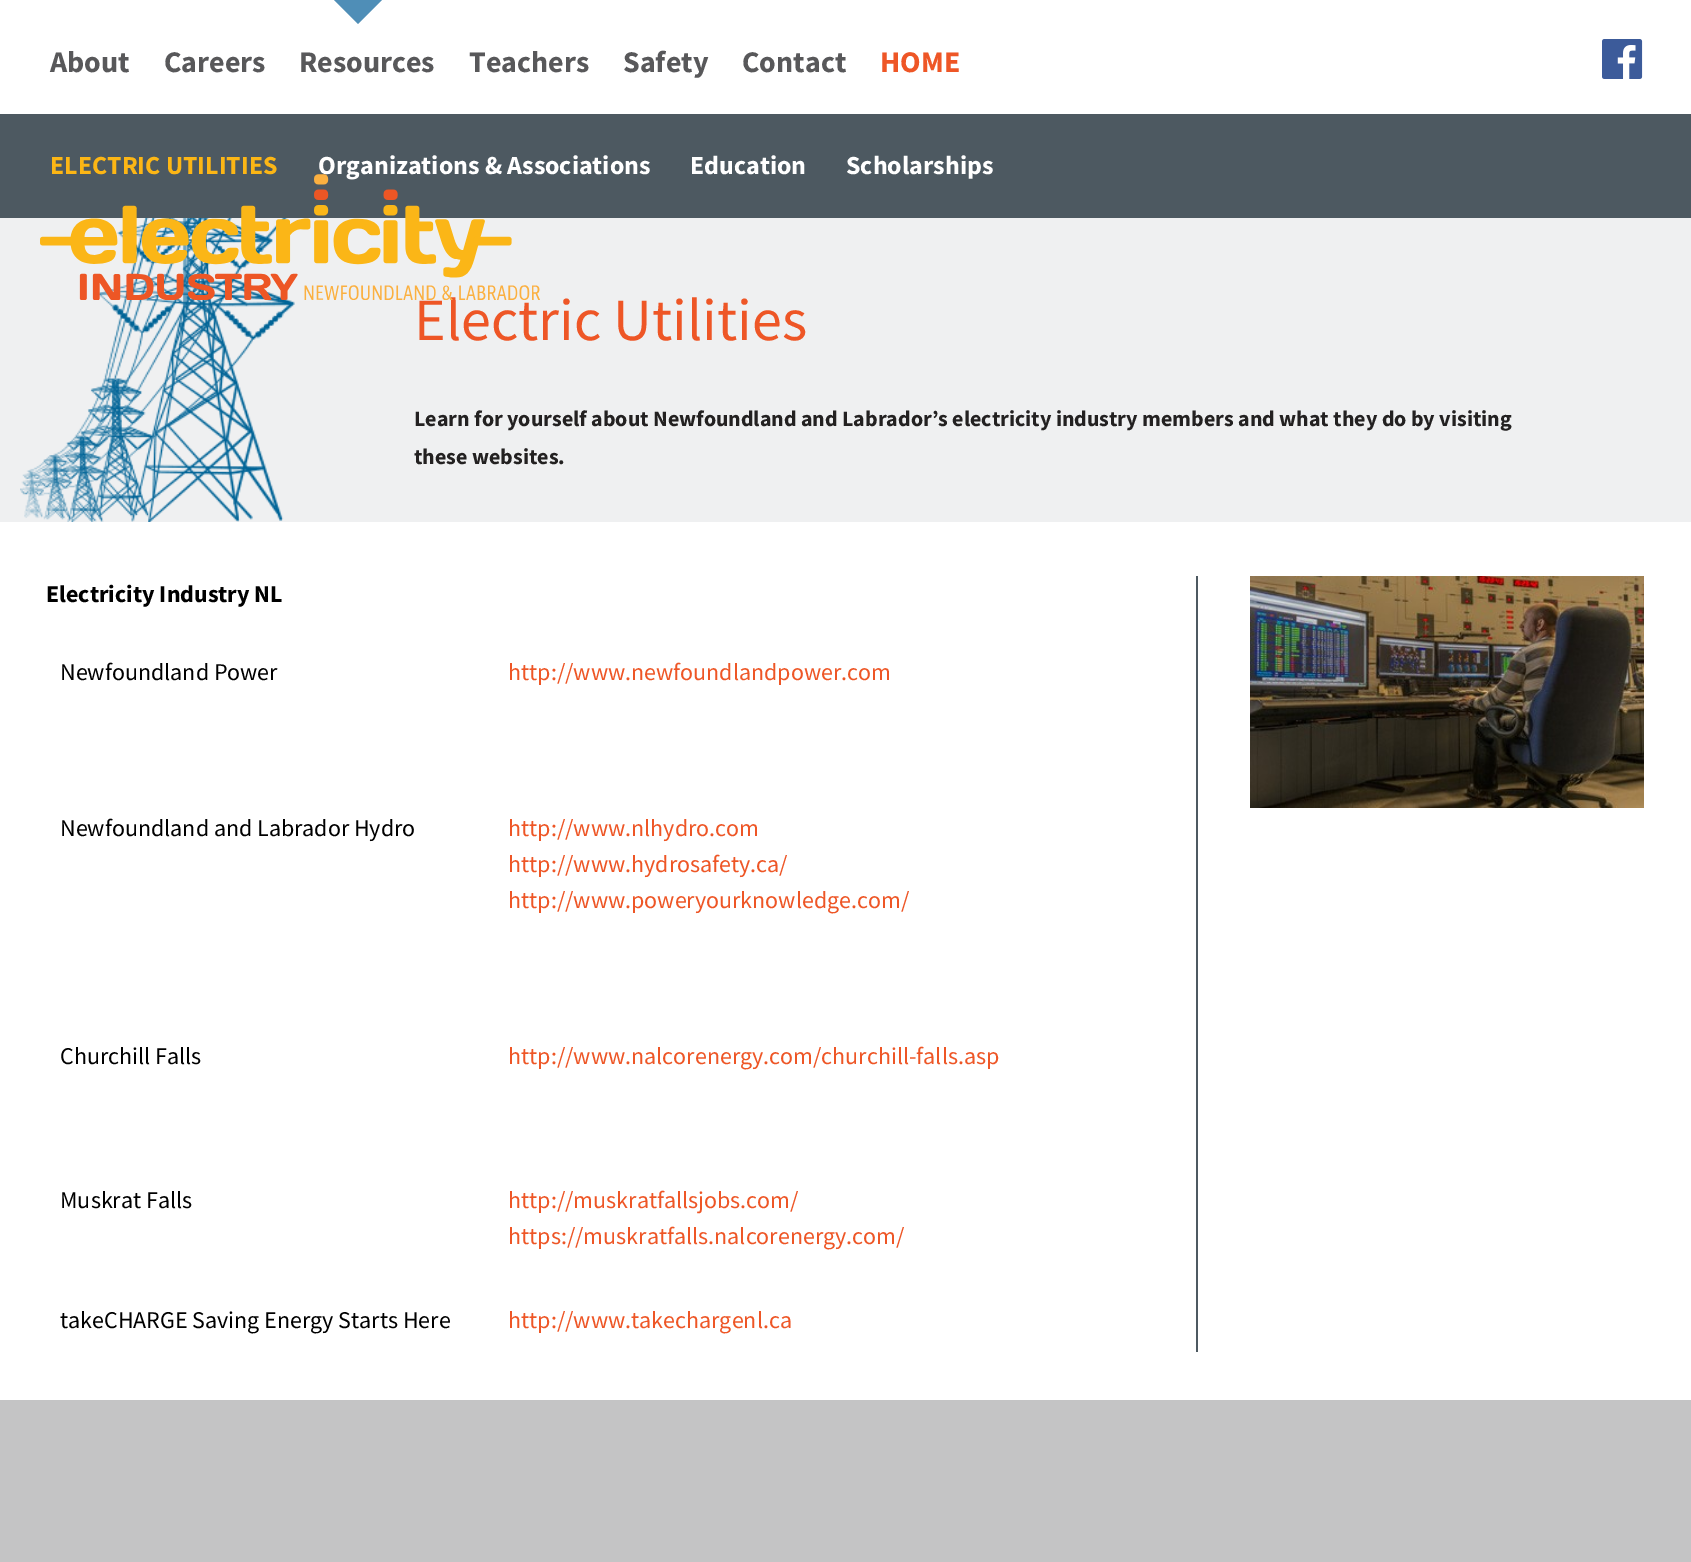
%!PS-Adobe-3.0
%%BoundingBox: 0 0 1691 1562
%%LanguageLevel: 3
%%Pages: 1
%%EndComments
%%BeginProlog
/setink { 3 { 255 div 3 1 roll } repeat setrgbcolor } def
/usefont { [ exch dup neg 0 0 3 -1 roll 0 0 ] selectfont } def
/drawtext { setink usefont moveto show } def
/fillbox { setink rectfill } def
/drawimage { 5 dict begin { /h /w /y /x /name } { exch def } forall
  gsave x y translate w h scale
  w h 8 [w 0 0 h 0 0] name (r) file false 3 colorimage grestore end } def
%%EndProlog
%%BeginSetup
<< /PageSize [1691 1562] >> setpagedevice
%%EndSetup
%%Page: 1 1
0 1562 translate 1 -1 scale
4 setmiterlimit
0 0 1691 1562 196 196 197 fillbox
0 0 1691 114 255 255 255 fillbox
(About) 50 72 /SourceSansPro-Bold 30 88 88 90 drawtext
(Careers) 164 72 /SourceSansPro-Bold 30 88 88 90 drawtext
79 142 183 setink
334 0 moveto 382 0 lineto 358 24 lineto closepath fill
(Resources) 299 72 /SourceSansPro-Bold 30 88 88 90 drawtext
(Teachers) 469 72 /SourceSansPro-Bold 30 88 88 90 drawtext
(Safety) 623 72 /SourceSansPro-Bold 30 88 88 90 drawtext
(Contact) 742 72 /SourceSansPro-Bold 30 88 88 90 drawtext
(HOME) 880 72 /SourceSansPro-Bold 30 238 86 38 drawtext
(assets/img1.rgb) 1602 39 41 40 drawimage
0 114 1691 104 77 89 97 fillbox
(ELECTRIC UTILITIES) 50 174 /SourceSansPro-Bold 26 252 182 21 drawtext
(Organizations & Associations) 318 174 /SourceSansPro-Bold 26 255 255 255 drawtext
0 218 1691 304 239 240 241 fillbox
(assets/img3.rgb) 20 218 275 304 drawimage
(Electric Utilities) 414 340 /SourceSansPro-Regular 60 238 86 38 drawtext
(assets/img2.rgb) 40 174 500 126 drawimage
0 522 1691 878 255 255 255 fillbox
(Education) 690 174 /SourceSansPro-Bold 26 255 255 255 drawtext
(Scholarships) 846 174 /SourceSansPro-Bold 26 255 255 255 drawtext
(Learn for yourself about Newfoundland and Labrador’s electricity industry members and what they do by visiting) 414 426 /SourceSansPro-Bold 22 35 33 33 drawtext
(these websites.) 414 464 /SourceSansPro-Bold 22 35 33 33 drawtext
(Electricity Industry NL) 46 602 /SourceSansPro-Bold 24 0 0 0 drawtext
(Newfoundland Power) 60 680 /SourceSansPro-Regular 24 0 0 0 drawtext
(http://www.newfoundlandpower.com) 508 680 /SourceSansPro-Regular 24 238 86 38 drawtext
(Newfoundland and Labrador Hydro) 60 836 /SourceSansPro-Regular 24 0 0 0 drawtext
(http://www.nlhydro.com) 508 836 /SourceSansPro-Regular 24 238 86 38 drawtext
(http://www.hydrosafety.ca/) 508 872 /SourceSansPro-Regular 24 238 86 38 drawtext
(http://www.poweryourknowledge.com/) 508 908 /SourceSansPro-Regular 24 238 86 38 drawtext
(Churchill Falls) 60 1064 /SourceSansPro-Regular 24 0 0 0 drawtext
(Muskrat Falls) 60 1208 /SourceSansPro-Regular 24 0 0 0 drawtext
(http://www.nalcorenergy.com/churchill-falls.asp) 508 1064 /SourceSansPro-Regular 24 238 86 38 drawtext
(http://muskratfallsjobs.com/) 508 1208 /SourceSansPro-Regular 24 238 86 38 drawtext
(https://muskratfalls.nalcorenergy.com/) 508 1244 /SourceSansPro-Regular 24 238 86 38 drawtext
(takeCHARGE Saving Energy Starts Here) 60 1328 /SourceSansPro-Regular 24 0 0 0 drawtext
(http://www.takechargenl.ca) 508 1328 /SourceSansPro-Regular 24 238 86 38 drawtext
1196 576 2 776 77 89 97 fillbox
(assets/img4.rgb) 1250 576 394 232 drawimage
showpage
%%EOF
